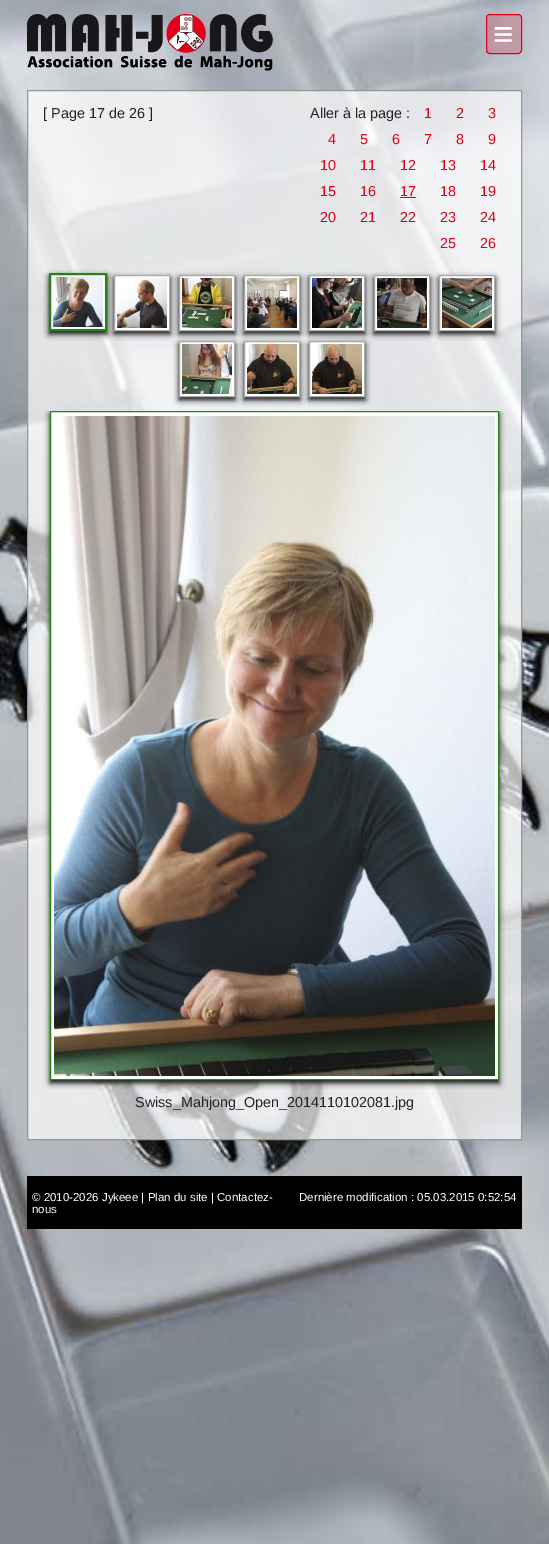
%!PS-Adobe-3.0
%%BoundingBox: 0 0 549 1544
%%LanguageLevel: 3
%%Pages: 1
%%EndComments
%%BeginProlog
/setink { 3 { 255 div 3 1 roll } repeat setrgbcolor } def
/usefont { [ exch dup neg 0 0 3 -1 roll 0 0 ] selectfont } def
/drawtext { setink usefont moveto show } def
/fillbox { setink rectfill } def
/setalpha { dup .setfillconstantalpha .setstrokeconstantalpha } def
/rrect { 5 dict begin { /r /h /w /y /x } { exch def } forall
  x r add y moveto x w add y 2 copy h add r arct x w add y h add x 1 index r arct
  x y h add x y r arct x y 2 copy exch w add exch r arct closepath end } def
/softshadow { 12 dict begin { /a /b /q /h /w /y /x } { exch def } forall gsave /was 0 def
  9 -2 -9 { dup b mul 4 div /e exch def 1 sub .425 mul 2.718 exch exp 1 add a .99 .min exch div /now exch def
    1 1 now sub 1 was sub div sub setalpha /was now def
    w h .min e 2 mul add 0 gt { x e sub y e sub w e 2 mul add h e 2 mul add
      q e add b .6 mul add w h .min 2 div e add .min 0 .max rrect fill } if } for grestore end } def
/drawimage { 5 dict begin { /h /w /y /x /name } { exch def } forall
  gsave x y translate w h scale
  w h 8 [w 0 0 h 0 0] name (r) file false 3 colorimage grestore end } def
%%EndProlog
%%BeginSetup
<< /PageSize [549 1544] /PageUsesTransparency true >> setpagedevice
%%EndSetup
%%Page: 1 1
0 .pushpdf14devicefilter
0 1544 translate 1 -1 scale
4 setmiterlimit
0 0 549 1544 255 255 255 fillbox
(assets/img1.rgb) 0 0 549 1544 drawimage
(assets/img2.rgb) 27 14 246 39 drawimage
(assets/img3.rgb) 27 55 246 16 drawimage
0.2 setalpha
226 0 26 setink
486.5 14.5 35 39 3.5 rrect fill
1 setalpha
486.5 14.5 35 39 3.5 rrect stroke
(≡) 493 46 /LiberationSans-Bold 35 255 255 255 drawtext
0.7 setalpha
27.5 90.5 moveto 521.5 90.5 lineto 521.5 1139.5 lineto 27.5 1139.5 lineto closepath fill
1 setalpha
150 150 150 setink
27.5 90.5 moveto 521.5 90.5 lineto 521.5 1139.5 lineto 27.5 1139.5 lineto closepath stroke
([ Page 17 de 26 ]) 43 118 /LiberationSans-Regular 14.4 38 33 39 drawtext
(Aller à la page :) 310 118 /LiberationSans-Regular 14.4 38 33 39 drawtext
(1) 424 118 /LiberationSans-Regular 14.4 226 0 26 drawtext
(2) 456 118 /LiberationSans-Regular 14.4 226 0 26 drawtext
(3) 488 118 /LiberationSans-Regular 14.4 226 0 26 drawtext
(4) 328 144 /LiberationSans-Regular 14.4 226 0 26 drawtext
(5) 360 144 /LiberationSans-Regular 14.4 226 0 26 drawtext
(6) 392 144 /LiberationSans-Regular 14.4 226 0 26 drawtext
(7) 424 144 /LiberationSans-Regular 14.4 226 0 26 drawtext
(8) 456 144 /LiberationSans-Regular 14.4 226 0 26 drawtext
(9) 488 144 /LiberationSans-Regular 14.4 226 0 26 drawtext
(10) 320 170 /LiberationSans-Regular 14.4 226 0 26 drawtext
(11) 360 170 /LiberationSans-Regular 14.4 226 0 26 drawtext
(12) 400 170 /LiberationSans-Regular 14.4 226 0 26 drawtext
(13) 440 170 /LiberationSans-Regular 14.4 226 0 26 drawtext
(14) 480 170 /LiberationSans-Regular 14.4 226 0 26 drawtext
(15) 320 196 /LiberationSans-Regular 14.4 226 0 26 drawtext
(16) 360 196 /LiberationSans-Regular 14.4 226 0 26 drawtext
(17) 400 196 /LiberationSans-Regular 14.4 226 0 26 drawtext
400 197 16 1 226 0 26 fillbox
(18) 440 196 /LiberationSans-Regular 14.4 226 0 26 drawtext
(19) 480 196 /LiberationSans-Regular 14.4 226 0 26 drawtext
(20) 320 222 /LiberationSans-Regular 14.4 226 0 26 drawtext
(21) 360 222 /LiberationSans-Regular 14.4 226 0 26 drawtext
(22) 400 222 /LiberationSans-Regular 14.4 226 0 26 drawtext
(23) 440 222 /LiberationSans-Regular 14.4 226 0 26 drawtext
(24) 480 222 /LiberationSans-Regular 14.4 226 0 26 drawtext
(25) 440 248 /LiberationSans-Regular 14.4 226 0 26 drawtext
(26) 480 248 /LiberationSans-Regular 14.4 226 0 26 drawtext
0 0 0 setink
49 276 58 58 0 3 1 softshadow
255 255 255 setink
50 274 moveto 106 274 lineto 106 330 lineto 50 330 lineto closepath gsave fill grestore
34 135 13 setink
2 setlinewidth
stroke
(assets/img4.rgb) 53 277 50 50 drawimage
0 0 0 setink
114 278 56 56 0 3 1 softshadow
255 255 255 setink
114.5 275.5 moveto 169.5 275.5 lineto 169.5 330.5 lineto 114.5 330.5 lineto closepath gsave fill grestore
170 170 170 setink
1 setlinewidth
stroke
(assets/img5.rgb) 117 278 50 50 drawimage
0 0 0 setink
179 278 56 56 0 3 1 softshadow
255 255 255 setink
179.5 275.5 moveto 234.5 275.5 lineto 234.5 330.5 lineto 179.5 330.5 lineto closepath gsave fill grestore
170 170 170 setink
stroke
(assets/img6.rgb) 182 278 50 50 drawimage
0 0 0 setink
244 278 56 56 0 3 1 softshadow
255 255 255 setink
244.5 275.5 moveto 299.5 275.5 lineto 299.5 330.5 lineto 244.5 330.5 lineto closepath gsave fill grestore
170 170 170 setink
stroke
(assets/img7.rgb) 247 278 50 50 drawimage
0 0 0 setink
309 278 56 56 0 3 1 softshadow
255 255 255 setink
309.5 275.5 moveto 364.5 275.5 lineto 364.5 330.5 lineto 309.5 330.5 lineto closepath gsave fill grestore
170 170 170 setink
stroke
(assets/img8.rgb) 312 278 50 50 drawimage
0 0 0 setink
374 278 56 56 0 3 1 softshadow
255 255 255 setink
374.5 275.5 moveto 429.5 275.5 lineto 429.5 330.5 lineto 374.5 330.5 lineto closepath gsave fill grestore
170 170 170 setink
stroke
(assets/img9.rgb) 377 278 50 50 drawimage
0 0 0 setink
439 278 56 56 0 3 1 softshadow
255 255 255 setink
439.5 275.5 moveto 494.5 275.5 lineto 494.5 330.5 lineto 439.5 330.5 lineto closepath gsave fill grestore
170 170 170 setink
stroke
(assets/img10.rgb) 442 278 50 50 drawimage
0 0 0 setink
179 344 56 56 0 3 1 softshadow
255 255 255 setink
179.5 341.5 moveto 234.5 341.5 lineto 234.5 396.5 lineto 179.5 396.5 lineto closepath gsave fill grestore
170 170 170 setink
stroke
(assets/img11.rgb) 182 344 50 50 drawimage
0 0 0 setink
244 344 56 56 0 3 1 softshadow
255 255 255 setink
244.5 341.5 moveto 299.5 341.5 lineto 299.5 396.5 lineto 244.5 396.5 lineto closepath gsave fill grestore
170 170 170 setink
stroke
(assets/img12.rgb) 247 344 50 50 drawimage
0 0 0 setink
309 344 56 56 0 3 1 softshadow
255 255 255 setink
309.5 341.5 moveto 364.5 341.5 lineto 364.5 396.5 lineto 309.5 396.5 lineto closepath gsave fill grestore
170 170 170 setink
stroke
(assets/img13.rgb) 312 344 50 50 drawimage
gsave
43 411 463 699 rectclip
0 0 0 setink
50 414 449 669 0 3 1 softshadow
grestore
255 255 255 setink
50.5 411.5 moveto 498.5 411.5 lineto 498.5 1079.5 lineto 50.5 1079.5 lineto closepath gsave fill grestore
34 135 13 setink
stroke
(assets/img14.rgb) 54 416 441 660 drawimage
(Swiss_Mahjong_Open_2014110102081.jpg) 135 1107 /LiberationSans-Regular 14.4 38 33 39 drawtext
27 1176 495 53 0 0 0 fillbox
(© 2010-2026 Jykeee | Plan du site | Contactez-) 32 1201 /LiberationSans-Regular 11.5 255 255 255 drawtext
(nous) 32 1213 /LiberationSans-Regular 11.5 255 255 255 drawtext
(Dernière modification : 05.03.2015 0:52:54) 299 1201 /LiberationSans-Regular 11.5 255 255 255 drawtext
.poppdf14devicefilter showpage
%%EOF
